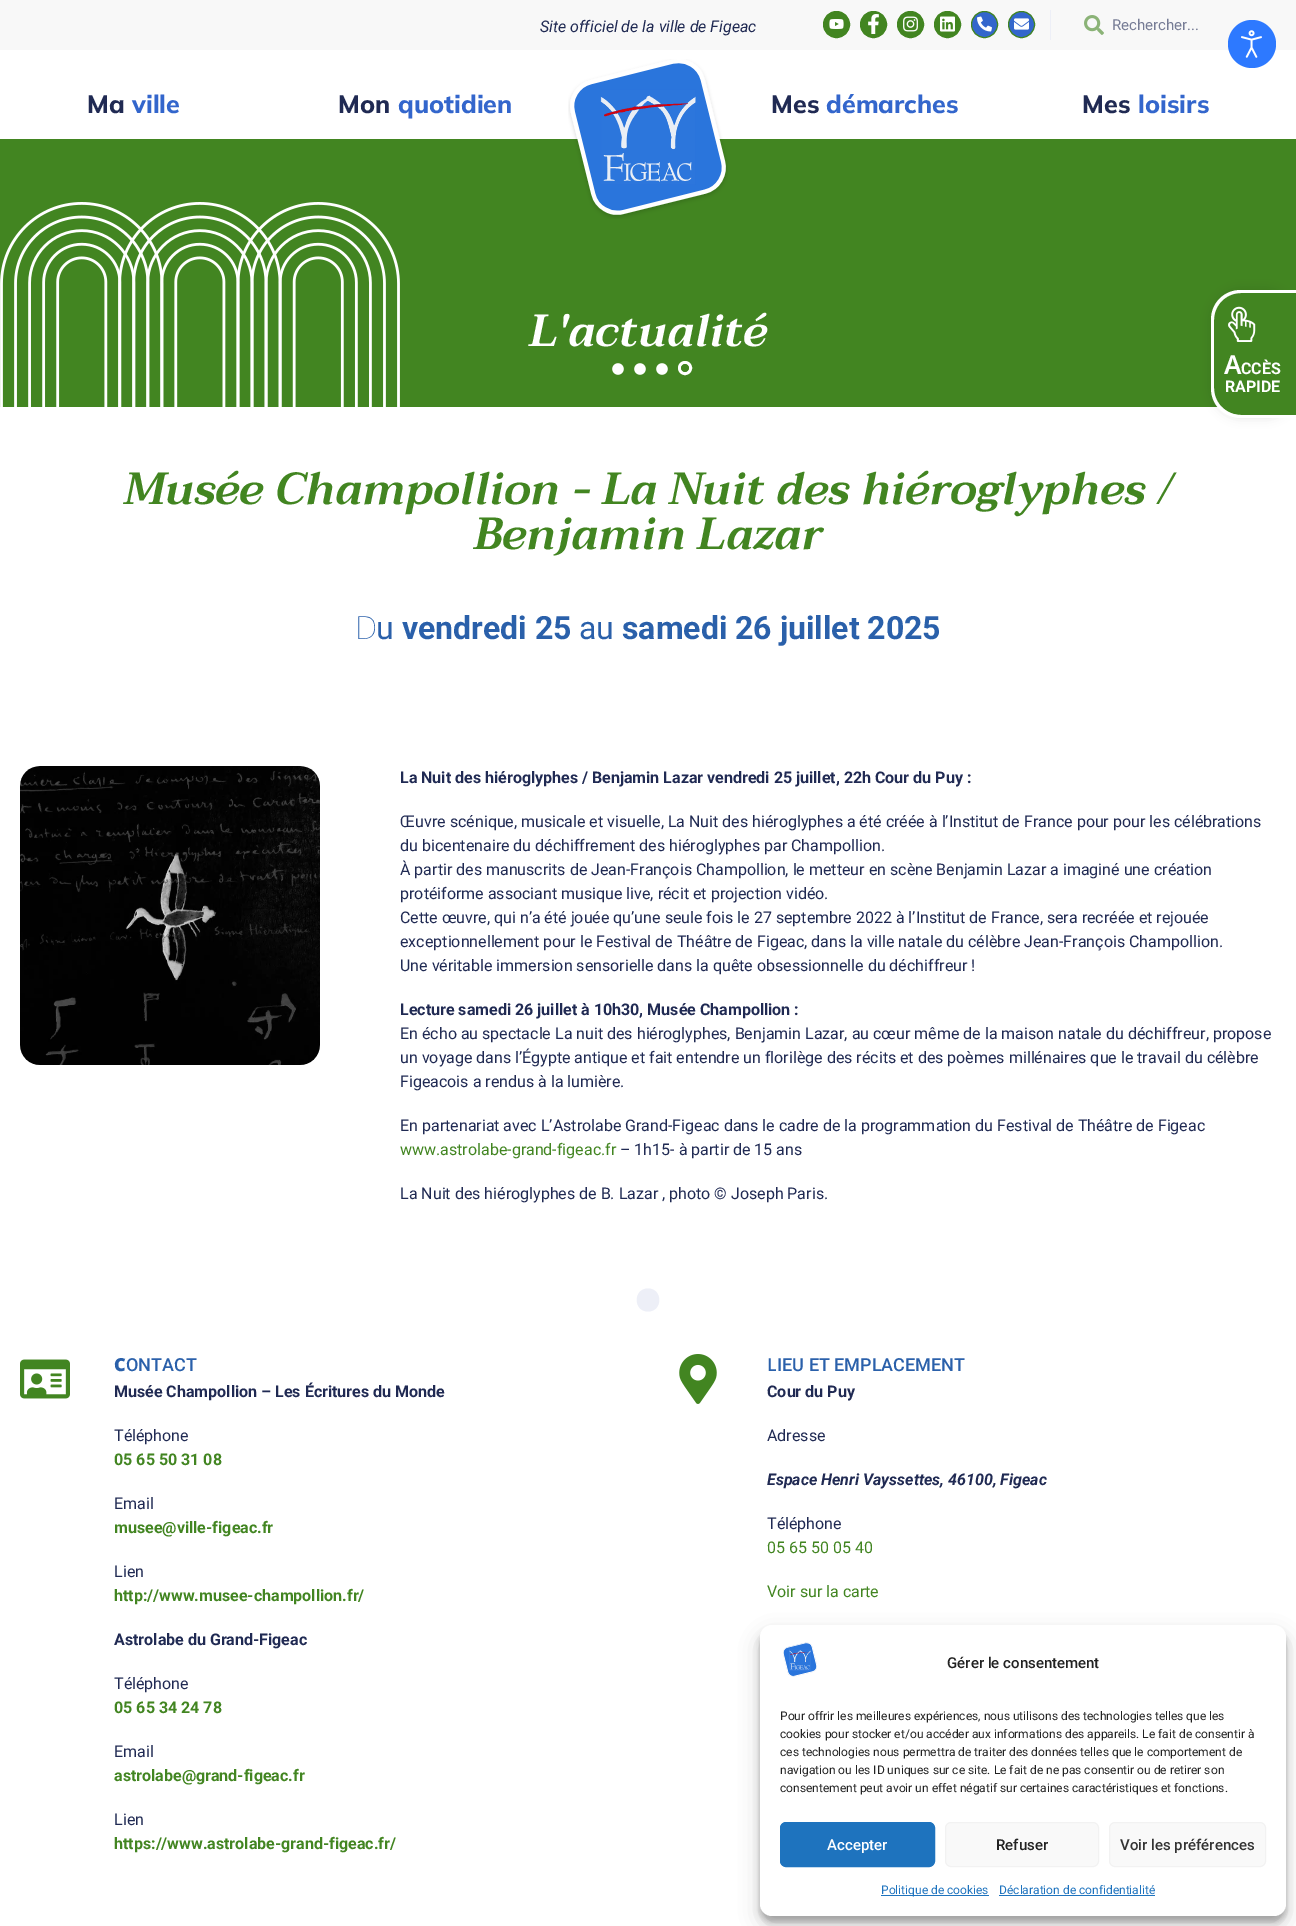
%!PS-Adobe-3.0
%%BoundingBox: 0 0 1296 1926
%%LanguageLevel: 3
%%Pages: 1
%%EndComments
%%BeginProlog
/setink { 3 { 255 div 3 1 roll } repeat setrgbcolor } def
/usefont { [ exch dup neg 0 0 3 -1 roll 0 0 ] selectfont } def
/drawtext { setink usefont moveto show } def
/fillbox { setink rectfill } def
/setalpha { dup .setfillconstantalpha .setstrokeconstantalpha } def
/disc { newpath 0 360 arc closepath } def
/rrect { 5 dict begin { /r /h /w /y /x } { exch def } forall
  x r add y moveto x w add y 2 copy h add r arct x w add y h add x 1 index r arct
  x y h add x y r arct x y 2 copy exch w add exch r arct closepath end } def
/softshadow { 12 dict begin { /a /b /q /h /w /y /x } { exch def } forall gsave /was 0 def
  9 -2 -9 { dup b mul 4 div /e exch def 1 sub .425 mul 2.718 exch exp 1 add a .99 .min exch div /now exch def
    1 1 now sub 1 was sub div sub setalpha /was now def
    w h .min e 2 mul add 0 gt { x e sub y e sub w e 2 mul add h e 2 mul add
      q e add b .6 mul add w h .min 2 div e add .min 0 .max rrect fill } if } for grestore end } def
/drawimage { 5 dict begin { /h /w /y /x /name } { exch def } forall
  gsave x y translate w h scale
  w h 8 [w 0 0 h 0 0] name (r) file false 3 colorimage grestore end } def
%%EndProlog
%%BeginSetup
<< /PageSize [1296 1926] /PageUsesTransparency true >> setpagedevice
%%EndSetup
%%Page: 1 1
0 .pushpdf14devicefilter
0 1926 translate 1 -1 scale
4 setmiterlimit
0 0 1296 1926 255 255 255 fillbox
0 0 1296 50 248 248 248 fillbox
(Site officiel de la ville de Figeac) 540 32 /Roboto-Italic 16 32 42 83 drawtext
66 133 33 setink
836.5 24.5 13 disc gsave fill grestore
stroke
(assets/img1.rgb) 829 19 15 10 drawimage
873.5 24.5 13 disc gsave fill grestore
stroke
(assets/img2.rgb) 868 14 11 20 drawimage
910.5 24.5 13 disc gsave fill grestore
stroke
(assets/img3.rgb) 903 16 15 16 drawimage
947.5 24.5 13 disc gsave fill grestore
stroke
(assets/img4.rgb) 940 16 15 16 drawimage
51 102 204 setink
984.5 24.5 13 disc gsave fill grestore
66 133 33 setink
stroke
(assets/img5.rgb) 977 16 15 16 drawimage
51 102 204 setink
1021.5 24.5 13 disc gsave fill grestore
66 133 33 setink
stroke
(assets/img6.rgb) 1014 18 15 12 drawimage
1050 10 1 30 237 239 247 fillbox
(assets/img7.rgb) 1084 15 20 20 drawimage
(Rechercher...) 1112 30 /Roboto-Regular 15 118 124 149 drawtext
0 139 1296 268 66 133 33 fillbox
0 0 0 setink
1211 290 85 128 30 5 0.1 softshadow
66 133 33 setink
1241 293 moveto 1296 293 lineto 1296 415 lineto 1241 415 lineto 1226 415 1214 403 1214 388 curveto 1214 320 lineto 1214 305 1226 293 1241 293 curveto closepath fill
255 255 255 setink
1241 290 moveto 1296 290 lineto 1296 418 lineto 1241 418 lineto 1224 418 1211 405 1211 388 curveto 1211 320 lineto 1211 303 1224 290 1241 290 curveto closepath 1241 293 moveto 1296 293 lineto 1296 415 lineto 1241 415 lineto 1226 415 1214 403 1214 388 curveto 1214 320 lineto 1214 305 1226 293 1241 293 curveto closepath eofill
(assets/img8.rgb) 1228 306 28 36 drawimage
(A) 1224 374 /NotoSans-SemiBold 26 255 255 255 drawtext
(CCÈS) 1241 374 /Roboto-Bold 16 255 255 255 drawtext
(RAPIDE) 1225 392 /Roboto-Bold 16 255 255 255 drawtext
(assets/img9.rgb) 568 59 160 160 drawimage
(Ma) 87 113 /Mulish-ExtraBold 25 32 42 83 drawtext
(ville) 132 113 /Mulish-ExtraBold 25 51 102 204 drawtext
(Mon) 338 113 /Mulish-ExtraBold 25 32 42 83 drawtext
(quotidien) 398 113 /Mulish-ExtraBold 25 51 102 204 drawtext
(Mes) 771 113 /Mulish-ExtraBold 25 32 42 83 drawtext
(démarches) 826 113 /Mulish-ExtraBold 25 51 102 204 drawtext
(Mes) 1082 113 /Mulish-ExtraBold 25 32 42 83 drawtext
(loisirs) 1138 113 /Mulish-ExtraBold 25 51 102 204 drawtext
45 121 255 setink
1252 44 24 disc fill
(assets/img10.rgb) 1241 30 21 28 drawimage
(assets/img11.rgb) 0 202 400 205 drawimage
(L'actualité) 529 346 /Taviraj-SemiBoldItalic 45 255 255 255 drawtext
(assets/img12.rgb) 612 363 12 12 drawimage
(assets/img12.rgb) 634 363 12 12 drawimage
(assets/img12.rgb) 656 363 12 12 drawimage
3 setlinewidth
685 368 5.5 disc stroke
(assets/img13.rgb) 681 364 8 8 drawimage
(Musée Champollion - La Nuit des hiéroglyphes /) 124 504 /Taviraj-SemiBoldItalic 45 66 133 33 drawtext
(Benjamin Lazar) 474 549 /Taviraj-SemiBoldItalic 45 66 133 33 drawtext
(D) 355 639 /NotoSans-Thin 32 42 96 170 drawtext
(u) 376 639 /Roboto-Regular 32 42 96 170 drawtext
(vendredi 25) 402 639 /Roboto-Bold 32 42 96 170 drawtext
(au) 579 639 /Roboto-Regular 32 42 96 170 drawtext
(samedi 26 juillet 2025) 622 639 /Roboto-Bold 32 42 96 170 drawtext
(assets/img14.rgb) 20 766 300 299 drawimage
(La Nuit des hiéroglyphes / Benjamin Lazar vendredi 25 juillet, 22h Cour du Puy :) 400 783 /Roboto-Bold 16 32 42 83 drawtext
(Œuvre scénique, musicale et visuelle, La Nuit des hiéroglyphes a été créée à l’Institut de France pour pour les célébrations) 400 827 /Roboto-Regular 16 32 42 83 drawtext
(du bicentenaire du déchiffrement des hiéroglyphes par Champollion.) 400 851 /Roboto-Regular 16 32 42 83 drawtext
(À partir des manuscrits de Jean-François Champollion, le metteur en scène Benjamin Lazar a imaginé une création) 400 875 /Roboto-Regular 16 32 42 83 drawtext
(protéiforme associant musique live, récit et projection vidéo.) 400 899 /Roboto-Regular 16 32 42 83 drawtext
(Cette œuvre, qui n’a été jouée qu’une seule fois le 27 septembre 2022 à l’Institut de France, sera recréée et rejouée) 400 923 /Roboto-Regular 16 32 42 83 drawtext
(exceptionnellement pour le Festival de Théâtre de Figeac, dans la ville natale du célèbre Jean-François Champollion.) 400 947 /Roboto-Regular 16 32 42 83 drawtext
(Une véritable immersion sensorielle dans la quête obsessionnelle du déchiffreur !) 400 971 /Roboto-Regular 16 32 42 83 drawtext
(Lecture samedi 26 juillet à 10h30, Musée Champollion :) 400 1015 /Roboto-Bold 16 32 42 83 drawtext
(En écho au spectacle La nuit des hiéroglyphes, Benjamin Lazar, au cœur même de la maison natale du déchiffreur, propose) 400 1039 /Roboto-Regular 16 32 42 83 drawtext
(un voyage dans l’Égypte antique et fait entendre un florilège des récits et des poèmes millénaires que le travail du célèbre) 400 1063 /Roboto-Regular 16 32 42 83 drawtext
(Figeacois a rendus à la lumière.) 400 1087 /Roboto-Regular 16 32 42 83 drawtext
(En partenariat avec L’Astrolabe Grand-Figeac dans le cadre de la programmation du Festival de Théâtre de Figeac) 400 1131 /Roboto-Regular 16 32 42 83 drawtext
(www.astrolabe-grand-figeac.fr) 400 1155 /Roboto-Regular 16 66 133 33 drawtext
(– 1h15- à partir de 15 ans) 620 1155 /Roboto-Regular 16 32 42 83 drawtext
(La Nuit des hiéroglyphes de B. Lazar , photo © Joseph Paris.) 400 1199 /Roboto-Regular 16 32 42 83 drawtext
237 239 247 setink
648 1288.5 moveto 633 1288.5 633 1311.5 648 1311.5 curveto 663 1311.5 663 1288.5 648 1288.5 curveto closepath fill
(assets/img15.rgb) 20 1359 50 40 drawimage
(C) 114 1371 /NotoSans-Black 18 42 96 170 drawtext
(ONTACT) 126 1371 /Roboto-Medium 18 42 96 170 drawtext
(Musée Champollion – Les Écritures du Monde) 114 1397 /Roboto-Bold 16 32 42 83 drawtext
(Téléphone) 114 1441 /Roboto-Regular 16 32 42 83 drawtext
(05 65 50 31 08) 114 1465 /Roboto-Bold 16 66 133 33 drawtext
(Email) 114 1509 /Roboto-Regular 16 32 42 83 drawtext
(musee@ville-figeac.fr) 114 1533 /Roboto-Bold 16 66 133 33 drawtext
(Lien) 114 1577 /Roboto-Regular 16 32 42 83 drawtext
(http://www.musee-champollion.fr/) 114 1601 /Roboto-Bold 16 66 133 33 drawtext
(Astrolabe du Grand-Figeac) 114 1645 /Roboto-Bold 16 32 42 83 drawtext
(Téléphone) 114 1689 /Roboto-Regular 16 32 42 83 drawtext
(05 65 34 24 78) 114 1713 /Roboto-Bold 16 66 133 33 drawtext
(Email) 114 1757 /Roboto-Regular 16 32 42 83 drawtext
(astrolabe@grand-figeac.fr) 114 1781 /Roboto-Bold 16 66 133 33 drawtext
(Lien) 114 1825 /Roboto-Regular 16 32 42 83 drawtext
(https://www.astrolabe-grand-figeac.fr/) 114 1849 /Roboto-Bold 16 66 133 33 drawtext
(assets/img16.rgb) 679 1354 38 50 drawimage
(L) 767 1371 /NotoSans-Medium 18 42 96 170 drawtext
(IEU ET EMPLACEMENT) 777 1371 /Roboto-Medium 18 42 96 170 drawtext
(Cour du Puy) 767 1397 /Roboto-Bold 16 32 42 83 drawtext
(Adresse) 767 1441 /Roboto-Regular 16 32 42 83 drawtext
(Espace Henri Vayssettes, 46100, Figeac) 767 1485 /Roboto-BoldItalic 16 32 42 83 drawtext
(Téléphone) 767 1529 /Roboto-Regular 16 32 42 83 drawtext
(05 65 50 05 40) 767 1553 /Roboto-Regular 16 66 133 33 drawtext
(Voir sur la carte) 767 1597 /Roboto-Regular 16 66 133 33 drawtext
0 0 0 setink
760 1631 526 291 12 3 0.23 softshadow
760 1635 526 291 12 10 0.19 softshadow
255 255 255 setink
760 1625 526 291 12 rrect fill
(assets/img17.rgb) 783 1642 34 35 drawimage
(Gérer le consentement) 947 1668 /Roboto-Medium 15 34 34 34 drawtext
(Pour offrir les meilleures expériences, nous utilisons des technologies telles que les) 780 1720 /Roboto-Regular 12 34 34 34 drawtext
(cookies pour stocker et/ou accéder aux informations des appareils. Le fait de consentir à) 780 1738 /Roboto-Regular 12 34 34 34 drawtext
(ces technologies nous permettra de traiter des données telles que le comportement de) 780 1756 /Roboto-Regular 12 34 34 34 drawtext
(navigation ou les ID uniques sur ce site. Le fait de ne pas consentir ou de retirer son) 780 1774 /Roboto-Regular 12 34 34 34 drawtext
(consentement peut avoir un effet négatif sur certaines caractéristiques et fonctions.) 780 1792 /Roboto-Regular 12 34 34 34 drawtext
30 115 190 setink
780.5 1822.5 154 44 5.5 rrect gsave fill grestore
1 setlinewidth
stroke
(Accepter) 827 1850 /Roboto-Medium 15 255 255 255 drawtext
249 249 249 setink
945.5 1822.5 153 44 5.5 rrect gsave fill grestore
242 242 242 setink
stroke
(Refuser) 996 1850 /Roboto-Medium 15 34 34 34 drawtext
249 249 249 setink
1109.5 1822.5 156 44 5.5 rrect gsave fill grestore
242 242 242 setink
stroke
(Voir les préférences) 1120 1850 /Roboto-Medium 15 51 51 51 drawtext
881 1895 108 1 30 115 190 fillbox
(Politique de cookies) 881 1894 /Roboto-Regular 12 30 115 190 drawtext
(Déclaration de confidentialité) 999 1894 /Roboto-Regular 12 30 115 190 drawtext
999 1895 156 1 30 115 190 fillbox
.poppdf14devicefilter showpage
%%EOF
